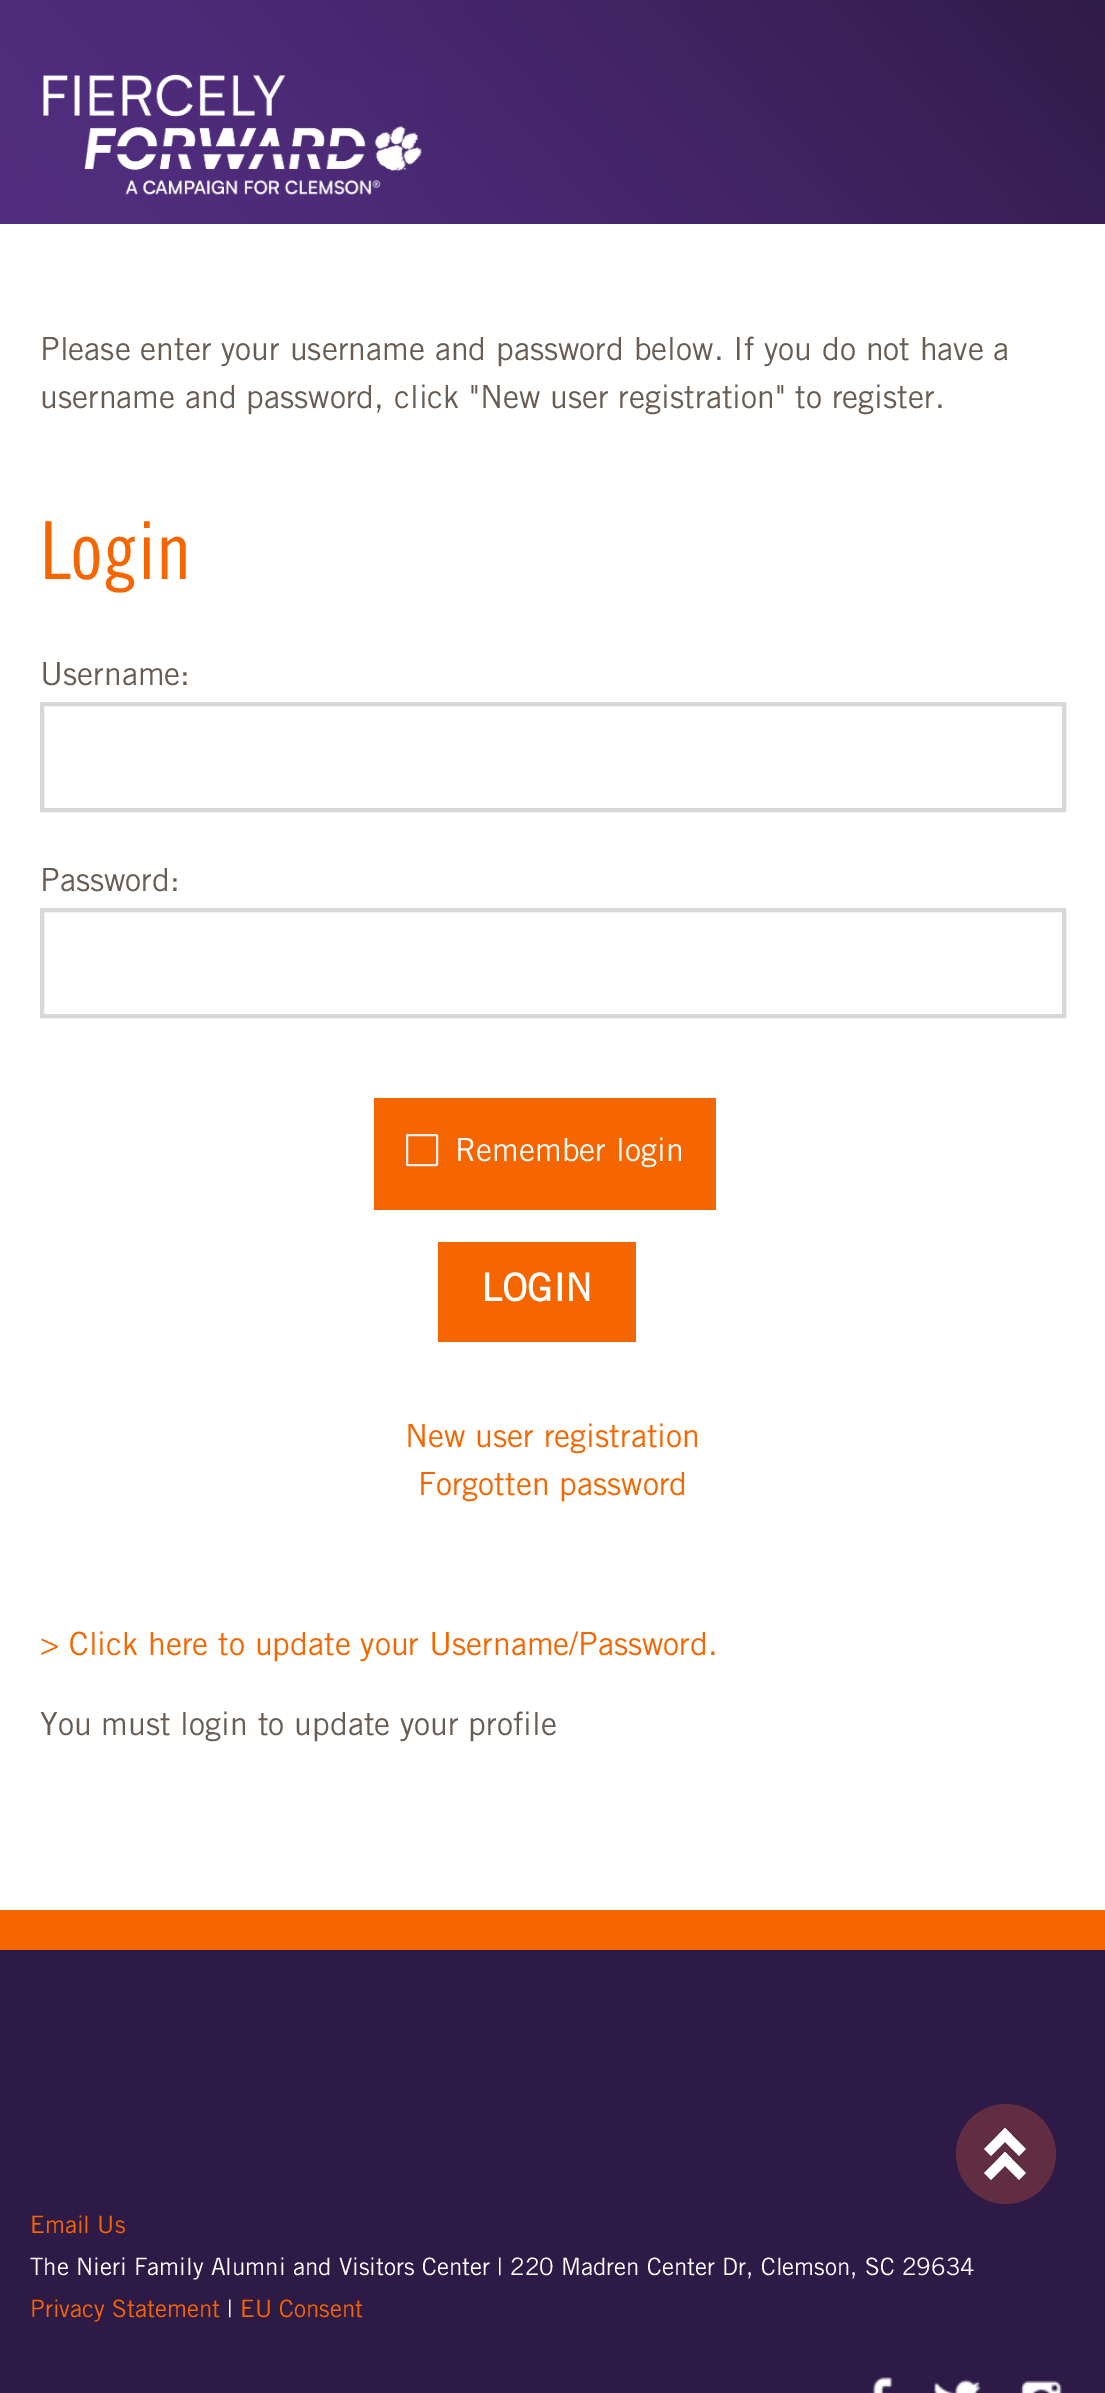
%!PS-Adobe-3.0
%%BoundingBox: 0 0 1105 2393
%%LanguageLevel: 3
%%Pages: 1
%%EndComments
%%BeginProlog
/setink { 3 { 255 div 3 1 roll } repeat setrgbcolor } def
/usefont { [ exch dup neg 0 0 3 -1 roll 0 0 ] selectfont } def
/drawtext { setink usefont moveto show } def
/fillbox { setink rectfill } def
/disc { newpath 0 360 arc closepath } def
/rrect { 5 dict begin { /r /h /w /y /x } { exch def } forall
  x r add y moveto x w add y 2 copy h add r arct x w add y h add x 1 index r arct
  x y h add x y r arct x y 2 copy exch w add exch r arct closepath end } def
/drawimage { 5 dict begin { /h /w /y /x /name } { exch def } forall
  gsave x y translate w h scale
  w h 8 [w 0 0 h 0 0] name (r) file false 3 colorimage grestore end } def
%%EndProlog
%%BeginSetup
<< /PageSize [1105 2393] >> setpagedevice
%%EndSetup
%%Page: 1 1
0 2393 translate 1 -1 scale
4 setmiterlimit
0 0 1105 2393 255 255 255 fillbox
gsave 0 0 moveto 1105 0 lineto 1105 224 lineto 0 224 lineto closepath clip newpath
<< /ShadingType 2 /ColorSpace /DeviceRGB /Coords [931 -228 175 452] /Extend [true true] /Function << /FunctionType 3 /Domain [0 1] /Functions [<< /FunctionType 2 /Domain [0 1] /C0 [0.18 0.106 0.275] /C1 [0.192 0.11 0.294] /N 1 >> << /FunctionType 2 /Domain [0 1] /C0 [0.192 0.11 0.294] /C1 [0.263 0.145 0.408] /N 1 >> << /FunctionType 2 /Domain [0 1] /C0 [0.263 0.145 0.408] /C1 [0.306 0.169 0.478] /N 1 >> << /FunctionType 2 /Domain [0 1] /C0 [0.306 0.169 0.478] /C1 [0.322 0.176 0.502] /N 1 >>] /Bounds [0.06 0.44 0.76] /Encode [0 1 0 1 0 1 0 1] >> >> shfill grestore
(assets/img1.rgb) 43 74 379 121 drawimage
(Please enter your username and password below. If you do not have a) 40 360 /TradeGothic-Regular 32 104 92 83 drawtext
(username and password, click "New user registration" to register.) 40 408 /TradeGothic-Regular 32 104 92 83 drawtext
(Login) 40 579 /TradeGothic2-Regular 80 245 102 0 drawtext
(Username:) 40 685 /TradeGothic-Regular 32 104 92 83 drawtext
216 216 216 setink
4 setlinewidth
42 704 1022 106 rectstroke
(Password:) 40 891 /TradeGothic-Regular 32 104 92 83 drawtext
216 216 216 setink
42 910 1022 106 rectstroke
374 1098 342 112 245 102 0 fillbox
238 238 238 setink
2 setlinewidth
407 1135 30 30 1 rrect stroke
(Remember login) 455 1161 /TradeGothic-Regular 32 255 255 255 drawtext
438 1242 198 100 245 102 0 fillbox
(LOGIN) 481 1301 /TradeGothic-Bold 38 255 255 255 drawtext
(New user registration) 405 1447 /TradeGothic-Regular 32 245 102 0 drawtext
(Forgotten password) 418 1495 /TradeGothic-Regular 32 245 102 0 drawtext
(> Click here to update your Username/Password.) 40 1655 /TradeGothic-Regular 32 245 102 0 drawtext
(You must login to update your profile) 40 1735 /TradeGothic-Regular 32 104 92 83 drawtext
0 1950 1105 443 46 26 71 fillbox
0 1910 1105 40 245 102 0 fillbox
96 45 66 setink
1006 2154 50 disc fill
255 255 255 setink
984 2149 moveto 1005 2128 lineto 1012 2135 lineto 991 2156 lineto closepath fill
998 2135 moveto 1005 2128 lineto 1026 2149 lineto 1019 2156 lineto closepath fill
984 2173 moveto 1005 2152 lineto 1012 2159 lineto 991 2180 lineto closepath fill
998 2159 moveto 1005 2152 lineto 1026 2173 lineto 1019 2180 lineto closepath fill
(assets/img2.rgb) 867 2377 26 16 drawimage
(assets/img3.rgb) 934 2379 47 14 drawimage
(assets/img4.rgb) 1020 2380 42 13 drawimage
(Email Us) 30 2233 /TradeGothic-Regular 24 245 102 0 drawtext
(The Nieri Family Alumni and Visitors Center | 220 Madren Center Dr, Clemson, SC 29634) 30 2275 /TradeGothic-Regular 24 255 255 255 drawtext
(Privacy Statement) 30 2317 /TradeGothic-Regular 24 245 102 0 drawtext
(|) 227 2317 /TradeGothic-Regular 24 255 255 255 drawtext
(EU Consent) 240 2317 /TradeGothic-Regular 24 245 102 0 drawtext
showpage
%%EOF
